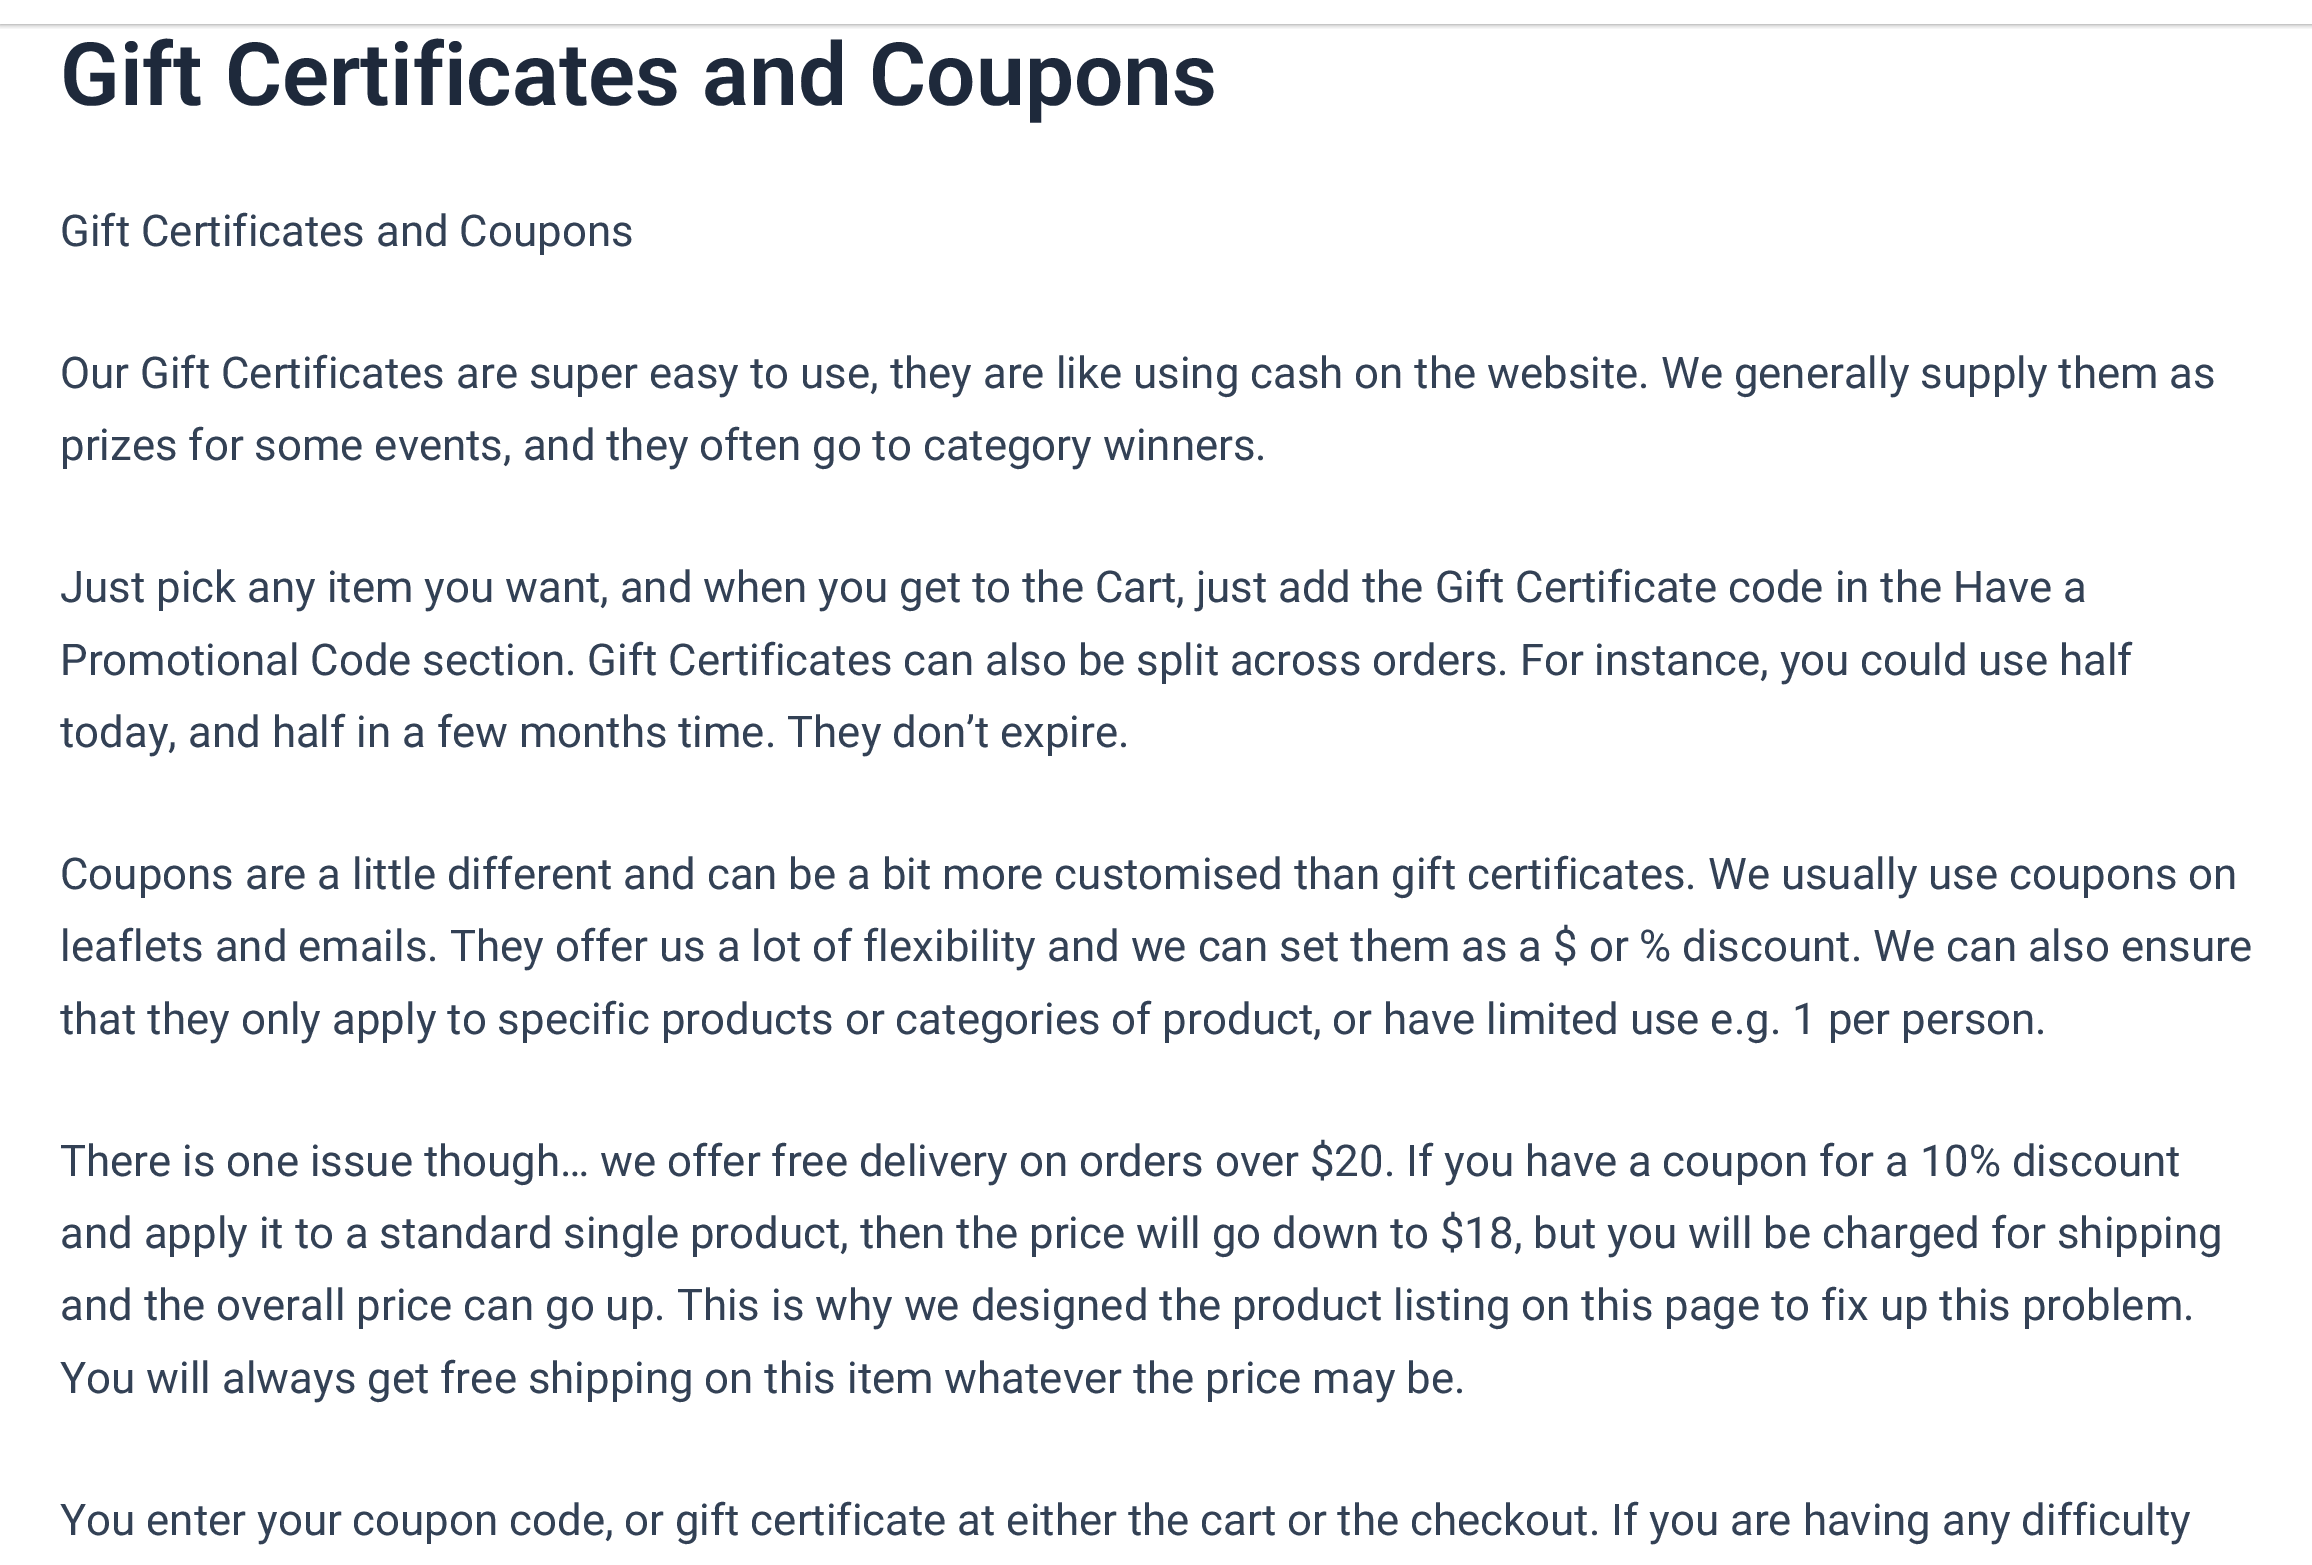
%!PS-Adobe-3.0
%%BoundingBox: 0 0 2312 1565
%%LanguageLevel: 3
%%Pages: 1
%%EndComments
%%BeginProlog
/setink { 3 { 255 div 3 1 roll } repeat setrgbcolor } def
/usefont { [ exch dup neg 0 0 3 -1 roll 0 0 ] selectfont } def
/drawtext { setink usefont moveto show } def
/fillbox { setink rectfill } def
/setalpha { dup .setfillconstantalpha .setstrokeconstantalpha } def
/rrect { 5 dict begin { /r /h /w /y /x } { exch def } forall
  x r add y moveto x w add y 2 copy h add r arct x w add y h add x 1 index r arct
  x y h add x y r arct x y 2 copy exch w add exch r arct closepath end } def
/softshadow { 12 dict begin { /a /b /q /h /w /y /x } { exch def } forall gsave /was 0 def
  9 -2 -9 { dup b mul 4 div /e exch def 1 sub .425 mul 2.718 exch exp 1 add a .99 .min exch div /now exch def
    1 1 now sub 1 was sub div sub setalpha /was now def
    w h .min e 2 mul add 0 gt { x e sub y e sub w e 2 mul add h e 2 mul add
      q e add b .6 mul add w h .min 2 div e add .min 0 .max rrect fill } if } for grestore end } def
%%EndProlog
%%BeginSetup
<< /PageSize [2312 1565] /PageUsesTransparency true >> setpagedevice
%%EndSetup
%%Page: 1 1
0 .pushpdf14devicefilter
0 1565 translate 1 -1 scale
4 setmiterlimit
0 0 2312 1565 255 255 255 fillbox
gsave
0 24 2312 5 rectclip
0 0 0 setink
0 -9 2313 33 0 3 0.5 softshadow
grestore
(Gift Certificates and Coupons) 60 105 /Roboto-SemiBold 87.5 30 41 59 drawtext
(Gift Certificates and Coupons) 60 246 /Roboto-Regular 43.78 51 65 85 drawtext
(Our Gift Certificates are super easy to use, they are like using cash on the website. We generally supply them as) 60 388 /Roboto-Regular 43.78 51 65 85 drawtext
(prizes for some events, and they often go to category winners.) 60 460 /Roboto-Regular 43.78 51 65 85 drawtext
(Just pick any item you want, and when you get to the Cart, just add the Gift Certificate code in the Have a) 60 602 /Roboto-Regular 43.78 51 65 85 drawtext
60 675 moveto -0.1 0 32 (Promotional Code section. Gift Certificates can also be split across orders. For instance, you could use half) widthshow
(today, and half in a few months time. They don’t expire.) 60 747 /Roboto-Regular 43.78 51 65 85 drawtext
(Coupons are a little different and can be a bit more customised than gift certificates. We usually use coupons on) 60 889 /Roboto-Regular 43.78 51 65 85 drawtext
(leaflets and emails. They offer us a lot of flexibility and we can set them as a $ or % discount. We can also ensure) 60 961 /Roboto-Regular 43.78 51 65 85 drawtext
(that they only apply to specific products or categories of product, or have limited use e.g. 1 per person.) 60 1034 /Roboto-Regular 43.78 51 65 85 drawtext
(There is one issue though… we offer free delivery on orders over $20. If you have a coupon for a 10% discount) 60 1176 /Roboto-Regular 43.78 51 65 85 drawtext
(and apply it to a standard single product, then the price will go down to $18, but you will be charged for shipping) 60 1248 /Roboto-Regular 43.78 51 65 85 drawtext
(and the overall price can go up. This is why we designed the product listing on this page to fix up this problem.) 60 1320 /Roboto-Regular 43.78 51 65 85 drawtext
(You will always get free shipping on this item whatever the price may be.) 60 1393 /Roboto-Regular 43.78 51 65 85 drawtext
(You enter your coupon code, or gift certificate at either the cart or the checkout. If you are having any difficulty) 60 1535 /Roboto-Regular 43.78 51 65 85 drawtext
.poppdf14devicefilter showpage
%%EOF
